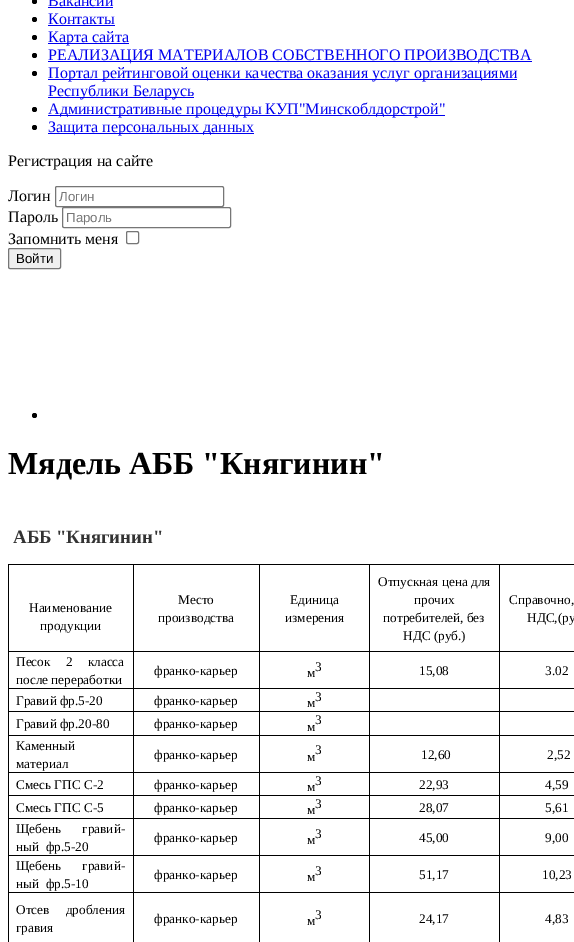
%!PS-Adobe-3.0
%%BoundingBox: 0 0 574 942
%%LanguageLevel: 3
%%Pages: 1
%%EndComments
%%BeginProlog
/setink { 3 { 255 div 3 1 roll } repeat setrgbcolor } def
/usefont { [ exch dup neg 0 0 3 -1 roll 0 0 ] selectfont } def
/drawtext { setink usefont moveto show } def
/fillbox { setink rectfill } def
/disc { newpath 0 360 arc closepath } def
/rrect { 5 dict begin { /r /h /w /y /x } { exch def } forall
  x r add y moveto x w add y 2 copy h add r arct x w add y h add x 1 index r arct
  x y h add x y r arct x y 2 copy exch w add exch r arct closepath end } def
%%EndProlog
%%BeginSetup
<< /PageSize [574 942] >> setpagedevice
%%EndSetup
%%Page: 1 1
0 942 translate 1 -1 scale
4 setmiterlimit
0 0 574 942 255 255 255 fillbox
0 0 0 setink
34.5 1.5 2.5 disc fill
(Вакансии) 48 6 /LiberationSerif-Regular 16 0 0 238 drawtext
48 7 65 1 0 0 238 fillbox
0 0 0 setink
34.5 19.5 2.5 disc fill
(Контакты) 48 24 /LiberationSerif-Regular 16 0 0 238 drawtext
48 25 67 1 0 0 238 fillbox
0 0 0 setink
34.5 37.5 2.5 disc fill
48 43 81 1 0 0 238 fillbox
(Карта сайта) 48 42 /LiberationSerif-Regular 16 0 0 238 drawtext
0 0 0 setink
34.5 55.5 2.5 disc fill
48 61 484 1 0 0 238 fillbox
(РЕАЛИЗАЦИЯ МАТЕРИАЛОВ СОБСТВЕННОГО ПРОИЗВОДСТВА) 48 60 /LiberationSerif-Regular 16 0 0 238 drawtext
0 0 0 setink
34.5 73.5 2.5 disc fill
48 79 469 1 0 0 238 fillbox
(Портал рейтинговой оценки качества оказания услуг организациями) 48 78 /LiberationSerif-Regular 16 0 0 238 drawtext
48 97 146 1 0 0 238 fillbox
(Республики Беларусь) 48 96 /LiberationSerif-Regular 16 0 0 238 drawtext
0 0 0 setink
34.5 109.5 2.5 disc fill
48 115 397 1 0 0 238 fillbox
(Административные процедуры КУП"Минскоблдорстрой") 48 114 /LiberationSerif-Regular 16 0 0 238 drawtext
0 0 0 setink
34.5 127.5 2.5 disc fill
48 133 206 1 0 0 238 fillbox
(Защита персональных данных) 48 132 /LiberationSerif-Regular 16 0 0 238 drawtext
(Регистрация на сайте) 8 166 /LiberationSerif-Regular 16 0 0 0 drawtext
(Логин) 8 201 /LiberationSerif-Regular 16 0 0 0 drawtext
118 118 118 setink
55.5 186.5 168 20 1.5 rrect stroke
(Логин) 59 201 /LiberationSans-Regular 13.25 117 117 117 drawtext
(Пароль) 8 222 /LiberationSerif-Regular 16 0 0 0 drawtext
118 118 118 setink
62.5 207.5 168 20 1.5 rrect stroke
(Пароль) 66 222 /LiberationSans-Regular 13.25 117 117 117 drawtext
(Запомнить меня) 8 244 /LiberationSerif-Regular 16 0 0 0 drawtext
118 118 118 setink
126.5 231.5 12 12 1.5 rrect stroke
239 239 239 setink
8.5 248.5 52 20 1.5 rrect gsave fill grestore
118 118 118 setink
stroke
(Войти) 16 263 /LiberationSans-Regular 13.25 0 0 0 drawtext
34.5 415.5 2.5 disc fill
(Мядель АББ "Княгинин") 8 474 /LiberationSerif-Bold 32 0 0 0 drawtext
(АББ "Княгинин") 13 543 /LiberationSerif-Bold 18.75 51 51 51 drawtext
8 564 566 1 0 0 0 fillbox
8 651 566 1 0 0 0 fillbox
8 688 566 1 0 0 0 fillbox
8 711 566 1 0 0 0 fillbox
8 735 566 1 0 0 0 fillbox
8 772 566 1 0 0 0 fillbox
8 795 566 1 0 0 0 fillbox
8 818 566 1 0 0 0 fillbox
8 855 566 1 0 0 0 fillbox
8 892 566 1 0 0 0 fillbox
133 892 1 50 0 0 0 fillbox
133 855 1 38 0 0 0 fillbox
133 818 1 38 0 0 0 fillbox
133 795 1 24 0 0 0 fillbox
133 772 1 24 0 0 0 fillbox
133 735 1 38 0 0 0 fillbox
133 711 1 25 0 0 0 fillbox
133 688 1 24 0 0 0 fillbox
133 651 1 38 0 0 0 fillbox
133 564 1 88 0 0 0 fillbox
8 892 1 50 0 0 0 fillbox
8 855 1 38 0 0 0 fillbox
8 818 1 38 0 0 0 fillbox
8 795 1 24 0 0 0 fillbox
8 772 1 24 0 0 0 fillbox
8 735 1 38 0 0 0 fillbox
8 711 1 25 0 0 0 fillbox
8 688 1 24 0 0 0 fillbox
8 651 1 38 0 0 0 fillbox
8 564 1 88 0 0 0 fillbox
(Наименование) 29 612 /LiberationSerif-Regular 13.25 0 0 0 drawtext
(продукции) 40 630 /LiberationSerif-Regular 13.25 0 0 0 drawtext
259 892 1 50 0 0 0 fillbox
259 855 1 38 0 0 0 fillbox
259 818 1 38 0 0 0 fillbox
259 795 1 24 0 0 0 fillbox
259 772 1 24 0 0 0 fillbox
259 735 1 38 0 0 0 fillbox
259 711 1 25 0 0 0 fillbox
259 688 1 24 0 0 0 fillbox
259 651 1 38 0 0 0 fillbox
259 564 1 88 0 0 0 fillbox
(Место) 178 604 /LiberationSerif-Regular 13.25 0 0 0 drawtext
(производства) 158 622 /LiberationSerif-Regular 13.25 0 0 0 drawtext
369 892 1 50 0 0 0 fillbox
369 855 1 38 0 0 0 fillbox
369 818 1 38 0 0 0 fillbox
369 795 1 24 0 0 0 fillbox
369 772 1 24 0 0 0 fillbox
369 735 1 38 0 0 0 fillbox
369 711 1 25 0 0 0 fillbox
369 688 1 24 0 0 0 fillbox
369 651 1 38 0 0 0 fillbox
369 564 1 88 0 0 0 fillbox
(Единица) 290 604 /LiberationSerif-Regular 13.25 0 0 0 drawtext
(измерения) 285 622 /LiberationSerif-Regular 13.25 0 0 0 drawtext
499 892 1 50 0 0 0 fillbox
499 855 1 38 0 0 0 fillbox
499 818 1 38 0 0 0 fillbox
499 795 1 24 0 0 0 fillbox
499 772 1 24 0 0 0 fillbox
499 735 1 38 0 0 0 fillbox
499 711 1 25 0 0 0 fillbox
499 688 1 24 0 0 0 fillbox
499 651 1 38 0 0 0 fillbox
499 564 1 88 0 0 0 fillbox
(Отпускная цена для) 378 586 /LiberationSerif-Regular 13.25 0 0 0 drawtext
(прочих) 414 604 /LiberationSerif-Regular 13.25 0 0 0 drawtext
(потребителей, без) 383 622 /LiberationSerif-Regular 13.25 0 0 0 drawtext
(НДС \(руб.\)) 403 640 /LiberationSerif-Regular 13.25 0 0 0 drawtext
(Справочно,) 509 604 /LiberationSerif-Regular 13.25 0 0 0 drawtext
(НДС,\(ру) 527 622 /LiberationSerif-Regular 13.25 0 0 0 drawtext
16 666 moveto 12 0 32 (Песок 2 класса) widthshow
(после переработки) 16 684 /LiberationSerif-Regular 13.25 0 0 0 drawtext
(франко-карьер) 154 675 /LiberationSerif-Regular 13.25 0 0 0 drawtext
(3) 315 671 /LiberationSerif-Regular 13.25 0 0 0 drawtext
(м) 307 677 /LiberationSerif-Regular 13.25 0 0 0 drawtext
(15,08) 419 675 /LiberationSerif-Regular 13.25 0 0 0 drawtext
(3.02) 545 675 /LiberationSerif-Regular 13.25 0 0 0 drawtext
(Гравий фр.5-20) 16 705 /LiberationSerif-Regular 13.25 0 0 0 drawtext
(франко-карьер) 154 705 /LiberationSerif-Regular 13.25 0 0 0 drawtext
(3) 315 701 /LiberationSerif-Regular 13.25 0 0 0 drawtext
(м) 307 707 /LiberationSerif-Regular 13.25 0 0 0 drawtext
(Гравий фр.20-80) 16 728 /LiberationSerif-Regular 13.25 0 0 0 drawtext
(франко-карьер) 154 728 /LiberationSerif-Regular 13.25 0 0 0 drawtext
(3) 315 724 /LiberationSerif-Regular 13.25 0 0 0 drawtext
(м) 307 731 /LiberationSerif-Regular 13.25 0 0 0 drawtext
(Каменный) 16 750 /LiberationSerif-Regular 13.25 0 0 0 drawtext
(материал) 16 768 /LiberationSerif-Regular 13.25 0 0 0 drawtext
(франко-карьер) 154 759 /LiberationSerif-Regular 13.25 0 0 0 drawtext
(3) 315 754 /LiberationSerif-Regular 13.25 0 0 0 drawtext
(м) 307 761 /LiberationSerif-Regular 13.25 0 0 0 drawtext
(12,60) 421 759 /LiberationSerif-Regular 13.25 0 0 0 drawtext
(2,52) 547 759 /LiberationSerif-Regular 13.25 0 0 0 drawtext
(Смесь ГПС С-2) 16 789 /LiberationSerif-Regular 13.25 0 0 0 drawtext
(франко-карьер) 154 789 /LiberationSerif-Regular 13.25 0 0 0 drawtext
(3) 315 785 /LiberationSerif-Regular 13.25 0 0 0 drawtext
(м) 307 791 /LiberationSerif-Regular 13.25 0 0 0 drawtext
(22,93) 419 789 /LiberationSerif-Regular 13.25 0 0 0 drawtext
(4,59) 545 789 /LiberationSerif-Regular 13.25 0 0 0 drawtext
(Смесь ГПС С-5) 16 812 /LiberationSerif-Regular 13.25 0 0 0 drawtext
(франко-карьер) 154 812 /LiberationSerif-Regular 13.25 0 0 0 drawtext
(3) 315 808 /LiberationSerif-Regular 13.25 0 0 0 drawtext
(м) 307 814 /LiberationSerif-Regular 13.25 0 0 0 drawtext
(28,07) 419 812 /LiberationSerif-Regular 13.25 0 0 0 drawtext
(5,61) 545 812 /LiberationSerif-Regular 13.25 0 0 0 drawtext
16 833 moveto 18 0 32 (Щебень гравий-) widthshow
(ный  фр.5-20) 16 851 /LiberationSerif-Regular 13.25 0 0 0 drawtext
(франко-карьер) 154 842 /LiberationSerif-Regular 13.25 0 0 0 drawtext
(3) 315 838 /LiberationSerif-Regular 13.25 0 0 0 drawtext
(м) 307 844 /LiberationSerif-Regular 13.25 0 0 0 drawtext
(45,00) 419 842 /LiberationSerif-Regular 13.25 0 0 0 drawtext
(9,00) 545 842 /LiberationSerif-Regular 13.25 0 0 0 drawtext
16 870 moveto 18 0 32 (Щебень гравий-) widthshow
(ный  фр.5-10) 16 888 /LiberationSerif-Regular 13.25 0 0 0 drawtext
(франко-карьер) 154 879 /LiberationSerif-Regular 13.25 0 0 0 drawtext
(3) 315 875 /LiberationSerif-Regular 13.25 0 0 0 drawtext
(м) 307 881 /LiberationSerif-Regular 13.25 0 0 0 drawtext
(51,17) 419 879 /LiberationSerif-Regular 13.25 0 0 0 drawtext
(10,23) 542 879 /LiberationSerif-Regular 13.25 0 0 0 drawtext
16 914 moveto 13 0 32 (Отсев дробления) widthshow
(гравия) 16 932 /LiberationSerif-Regular 13.25 0 0 0 drawtext
(франко-карьер) 154 923 /LiberationSerif-Regular 13.25 0 0 0 drawtext
(3) 315 919 /LiberationSerif-Regular 13.25 0 0 0 drawtext
(м) 307 925 /LiberationSerif-Regular 13.25 0 0 0 drawtext
(24,17) 419 923 /LiberationSerif-Regular 13.25 0 0 0 drawtext
(4,83) 545 923 /LiberationSerif-Regular 13.25 0 0 0 drawtext
showpage
%%EOF
